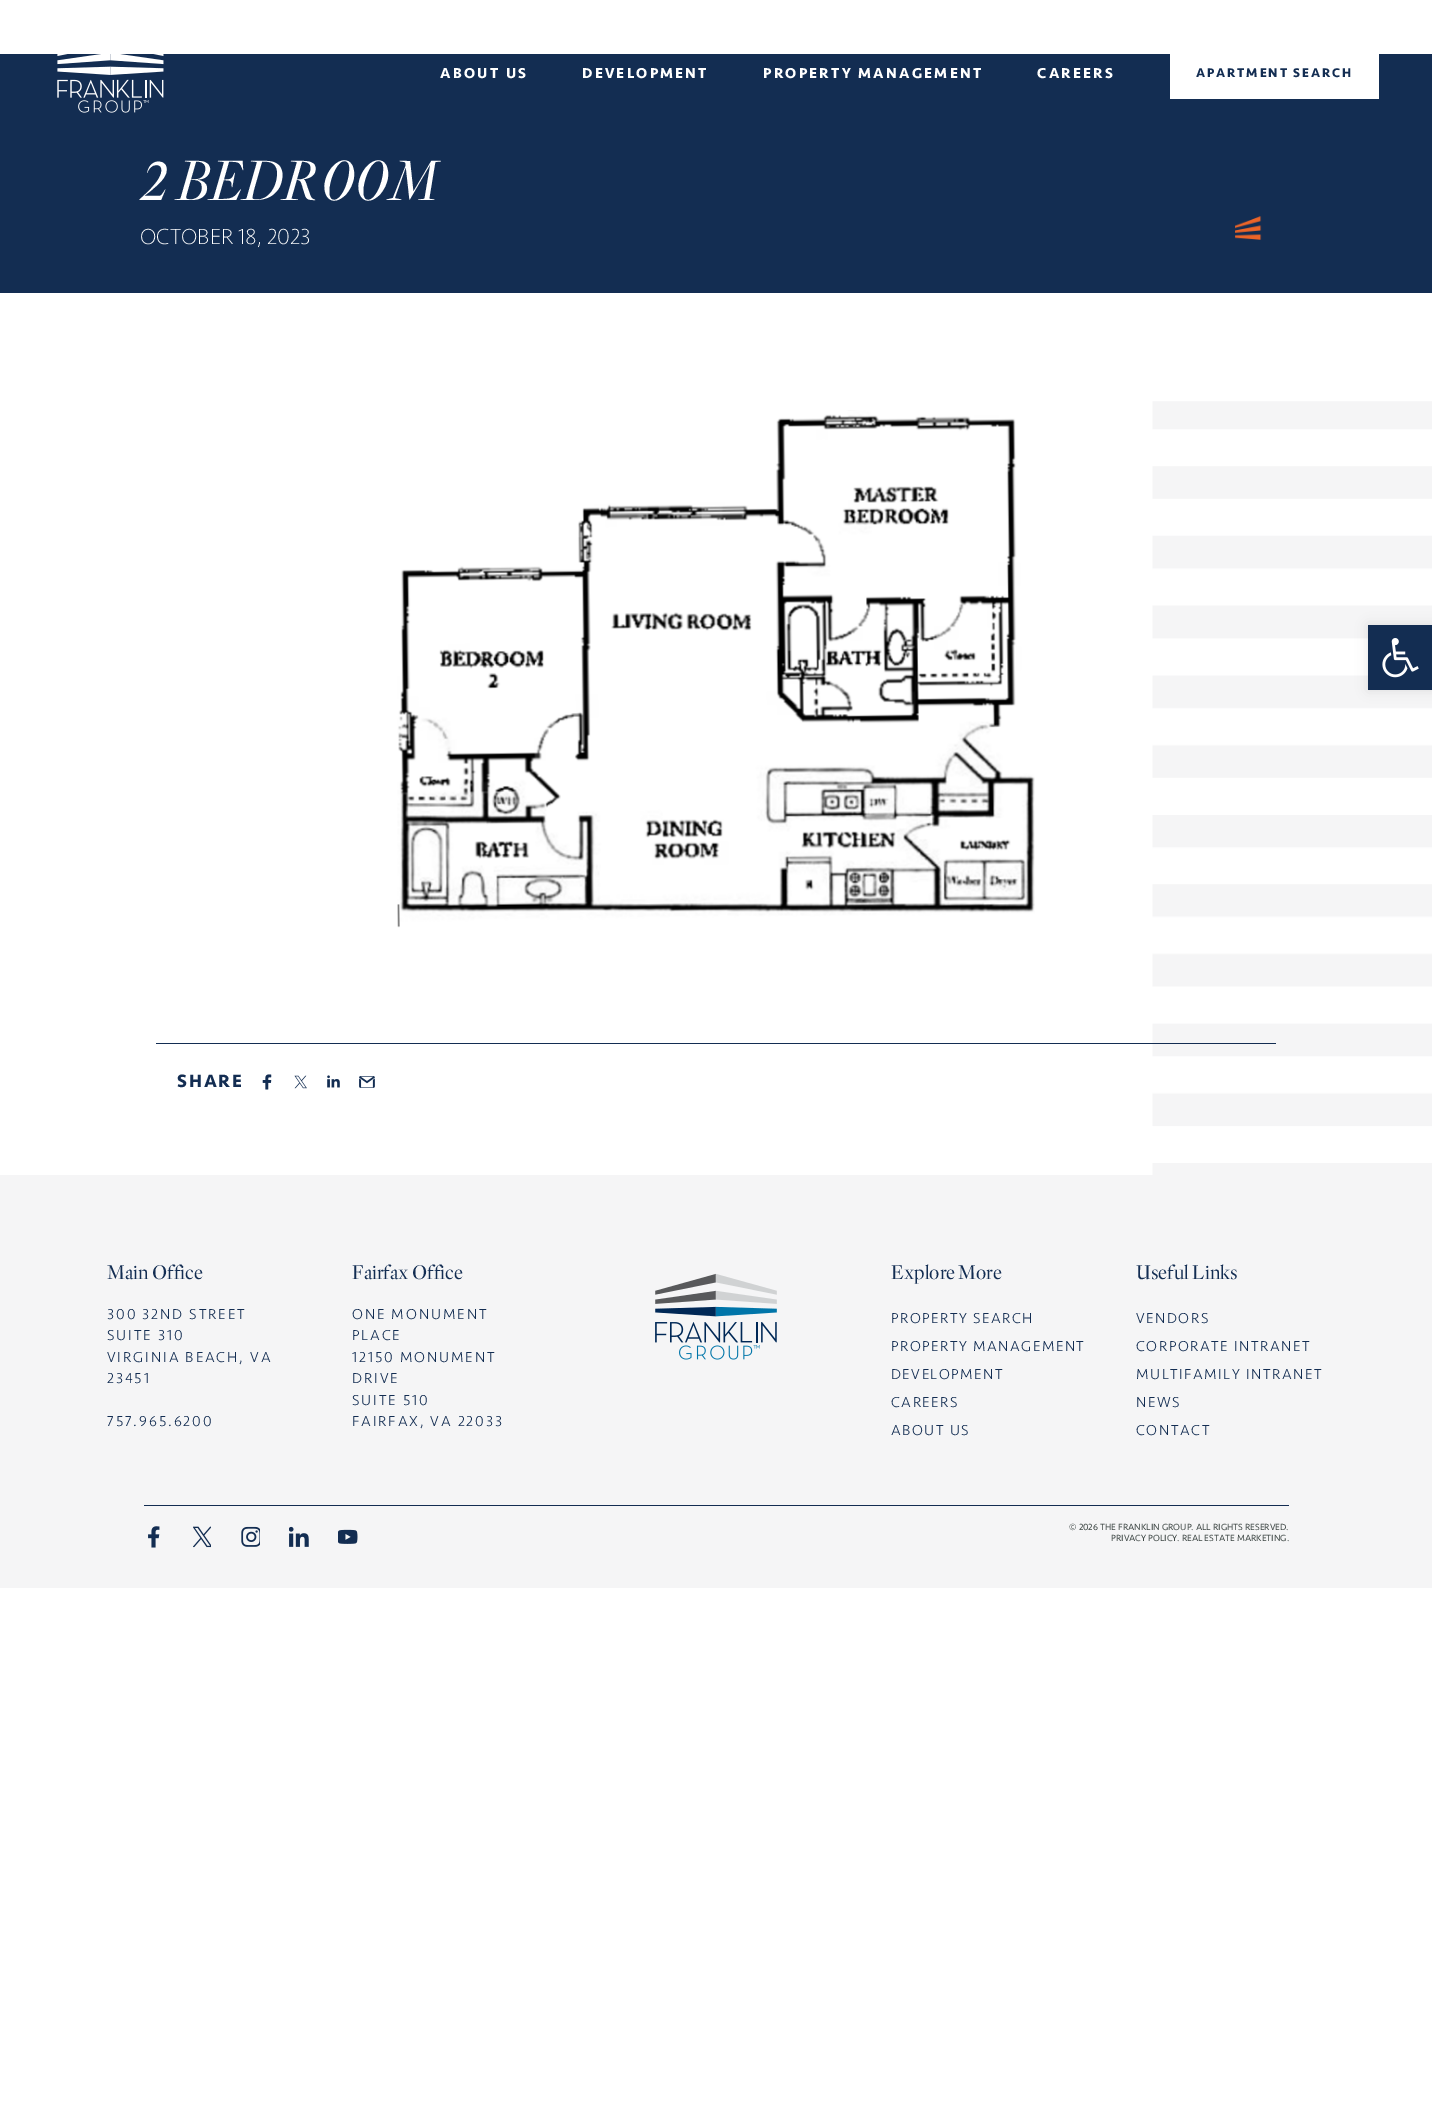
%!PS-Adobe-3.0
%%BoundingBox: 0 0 1432 2116
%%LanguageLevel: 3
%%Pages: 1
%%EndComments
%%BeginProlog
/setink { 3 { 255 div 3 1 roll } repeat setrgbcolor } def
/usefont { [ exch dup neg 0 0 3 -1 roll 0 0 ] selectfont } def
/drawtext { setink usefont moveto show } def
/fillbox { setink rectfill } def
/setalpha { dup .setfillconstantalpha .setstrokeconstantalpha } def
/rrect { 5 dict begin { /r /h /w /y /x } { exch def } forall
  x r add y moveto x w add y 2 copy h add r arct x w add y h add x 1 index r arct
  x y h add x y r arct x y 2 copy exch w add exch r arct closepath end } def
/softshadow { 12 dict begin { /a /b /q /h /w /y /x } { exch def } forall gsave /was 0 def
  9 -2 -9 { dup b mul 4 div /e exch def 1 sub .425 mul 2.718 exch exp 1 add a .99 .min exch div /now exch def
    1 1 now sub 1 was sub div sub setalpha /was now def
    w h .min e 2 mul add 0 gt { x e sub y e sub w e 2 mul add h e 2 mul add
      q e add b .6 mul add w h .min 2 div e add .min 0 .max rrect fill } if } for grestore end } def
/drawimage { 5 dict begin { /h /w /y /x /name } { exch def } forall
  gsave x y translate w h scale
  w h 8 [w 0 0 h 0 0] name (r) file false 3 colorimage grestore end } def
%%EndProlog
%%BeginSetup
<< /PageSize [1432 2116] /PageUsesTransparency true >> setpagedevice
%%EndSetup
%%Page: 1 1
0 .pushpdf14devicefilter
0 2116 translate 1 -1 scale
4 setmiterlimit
0 0 1432 2116 255 255 255 fillbox
0 54 1432 239 19 45 82 fillbox
(assets/img1.rgb) 57 54 107 59 drawimage
/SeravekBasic-Bold 14.9 usefont
255 255 255 setink
440 78 moveto 2.25 0 (ABOUT US) ashow
582 78 moveto 2.25 0 (DEVELOPMENT) ashow
763 78 moveto 2.25 0 (PROPERTY MANAGEMENT) ashow
1037 78 moveto 2.25 0 (CAREERS) ashow
1170 54 209 45 255 255 255 fillbox
/SeravekBasic-Bold 13 usefont
19 45 82 setink
1196 77 moveto 1.9 0 (APARTMENT SEARCH) ashow
(2 BEDROOM) 140 200 /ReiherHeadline-LightItalic 56 255 255 255 drawtext
(OCTOBER 18, 2023) 140 244 /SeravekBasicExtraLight-ExtraLight 22.5 255 255 255 drawtext
(assets/img2.rgb) 1235 216 27 24 drawimage
(assets/img3.rgb) 397 410 638 518 drawimage
(assets/img8.rgb) 1152 401 280 774 drawimage
156 1043 1120 1 19 45 82 fillbox
/SeravekBasic-Bold 18.5 usefont
177 1087 moveto 1.9 0 (SHARE) ashow
(assets/img4.rgb) 262 1074 10 16 drawimage
(assets/img5.rgb) 294 1075 13 14 drawimage
(assets/img6.rgb) 327 1075 13 13 drawimage
(assets/img7.rgb) 359 1076 16 12 drawimage
0 1175 1432 413 245 245 246 fillbox
(Main Office) 107 1279 /ReiherHeadline-Light 19.5 19 45 82 drawtext
/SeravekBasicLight-Light 14.9 usefont
107 1319 moveto 1.9 0 (300 32ND STREET) ashow
107 1340 moveto 1.9 0 (SUITE 310) ashow
107 1362 moveto 1.9 0 (VIRGINIA BEACH, VA) ashow
107 1383 moveto 1.9 0 (23451) ashow
107 1426 moveto 1.9 0 (757.965.6200) ashow
(Fairfax Office) 352 1279 /ReiherHeadline-Light 19.5 19 45 82 drawtext
/SeravekBasicLight-Light 14.9 usefont
352 1319 moveto 1.9 0 (ONE MONUMENT) ashow
352 1340 moveto 1.9 0 (PLACE) ashow
352 1362 moveto 1.9 0 (12150 MONUMENT) ashow
352 1383 moveto 1.9 0 (DRIVE) ashow
352 1405 moveto 1.9 0 (SUITE 510) ashow
352 1426 moveto 1.9 0 (FAIRFAX, VA 22033) ashow
(assets/img9.rgb) 655 1273 122 87 drawimage
(Explore More) 891 1279 /ReiherHeadline-Light 19.5 19 45 82 drawtext
/SeravekBasicLight-Light 14.9 usefont
891 1323 moveto 1.5 0 (PROPERTY SEARCH) ashow
891 1351 moveto 1.5 0 (PROPERTY MANAGEMENT) ashow
891 1379 moveto 1.5 0 (DEVELOPMENT) ashow
891 1407 moveto 1.5 0 (CAREERS) ashow
891 1435 moveto 1.5 0 (ABOUT US) ashow
(Useful Links) 1136 1279 /ReiherHeadline-Light 19.5 19 45 82 drawtext
/SeravekBasicLight-Light 14.9 usefont
1136 1323 moveto 1.5 0 (VENDORS) ashow
1136 1351 moveto 1.5 0 (CORPORATE INTRANET) ashow
1136 1379 moveto 1.5 0 (MULTIFAMILY INTRANET) ashow
1136 1407 moveto 1.5 0 (NEWS) ashow
1136 1435 moveto 1.5 0 (CONTACT) ashow
144 1505 1145 1 19 45 82 fillbox
(assets/img10.rgb) 148 1526 12 22 drawimage
(assets/img11.rgb) 193 1526 18 22 drawimage
(assets/img12.rgb) 241 1526 19 21 drawimage
(assets/img13.rgb) 289 1526 20 21 drawimage
(assets/img14.rgb) 338 1529 20 15 drawimage
(© 2026 THE FRANKLIN GROUP. ALL RIGHTS RESERVED.) 1069 1530 /SeravekBasic-Regular 9.3 61 70 68 drawtext
(PRIVACY POLICY. REAL ESTATE MARKETING.) 1111 1541 /SeravekBasic-Regular 9.3 61 70 68 drawtext
0 0 0 setink
1368 625 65 65 0 6 0.1 softshadow
1368 625 64 65 19 45 82 fillbox
(assets/img15.rgb) 1382 638 37 40 drawimage
.poppdf14devicefilter showpage
%%EOF
